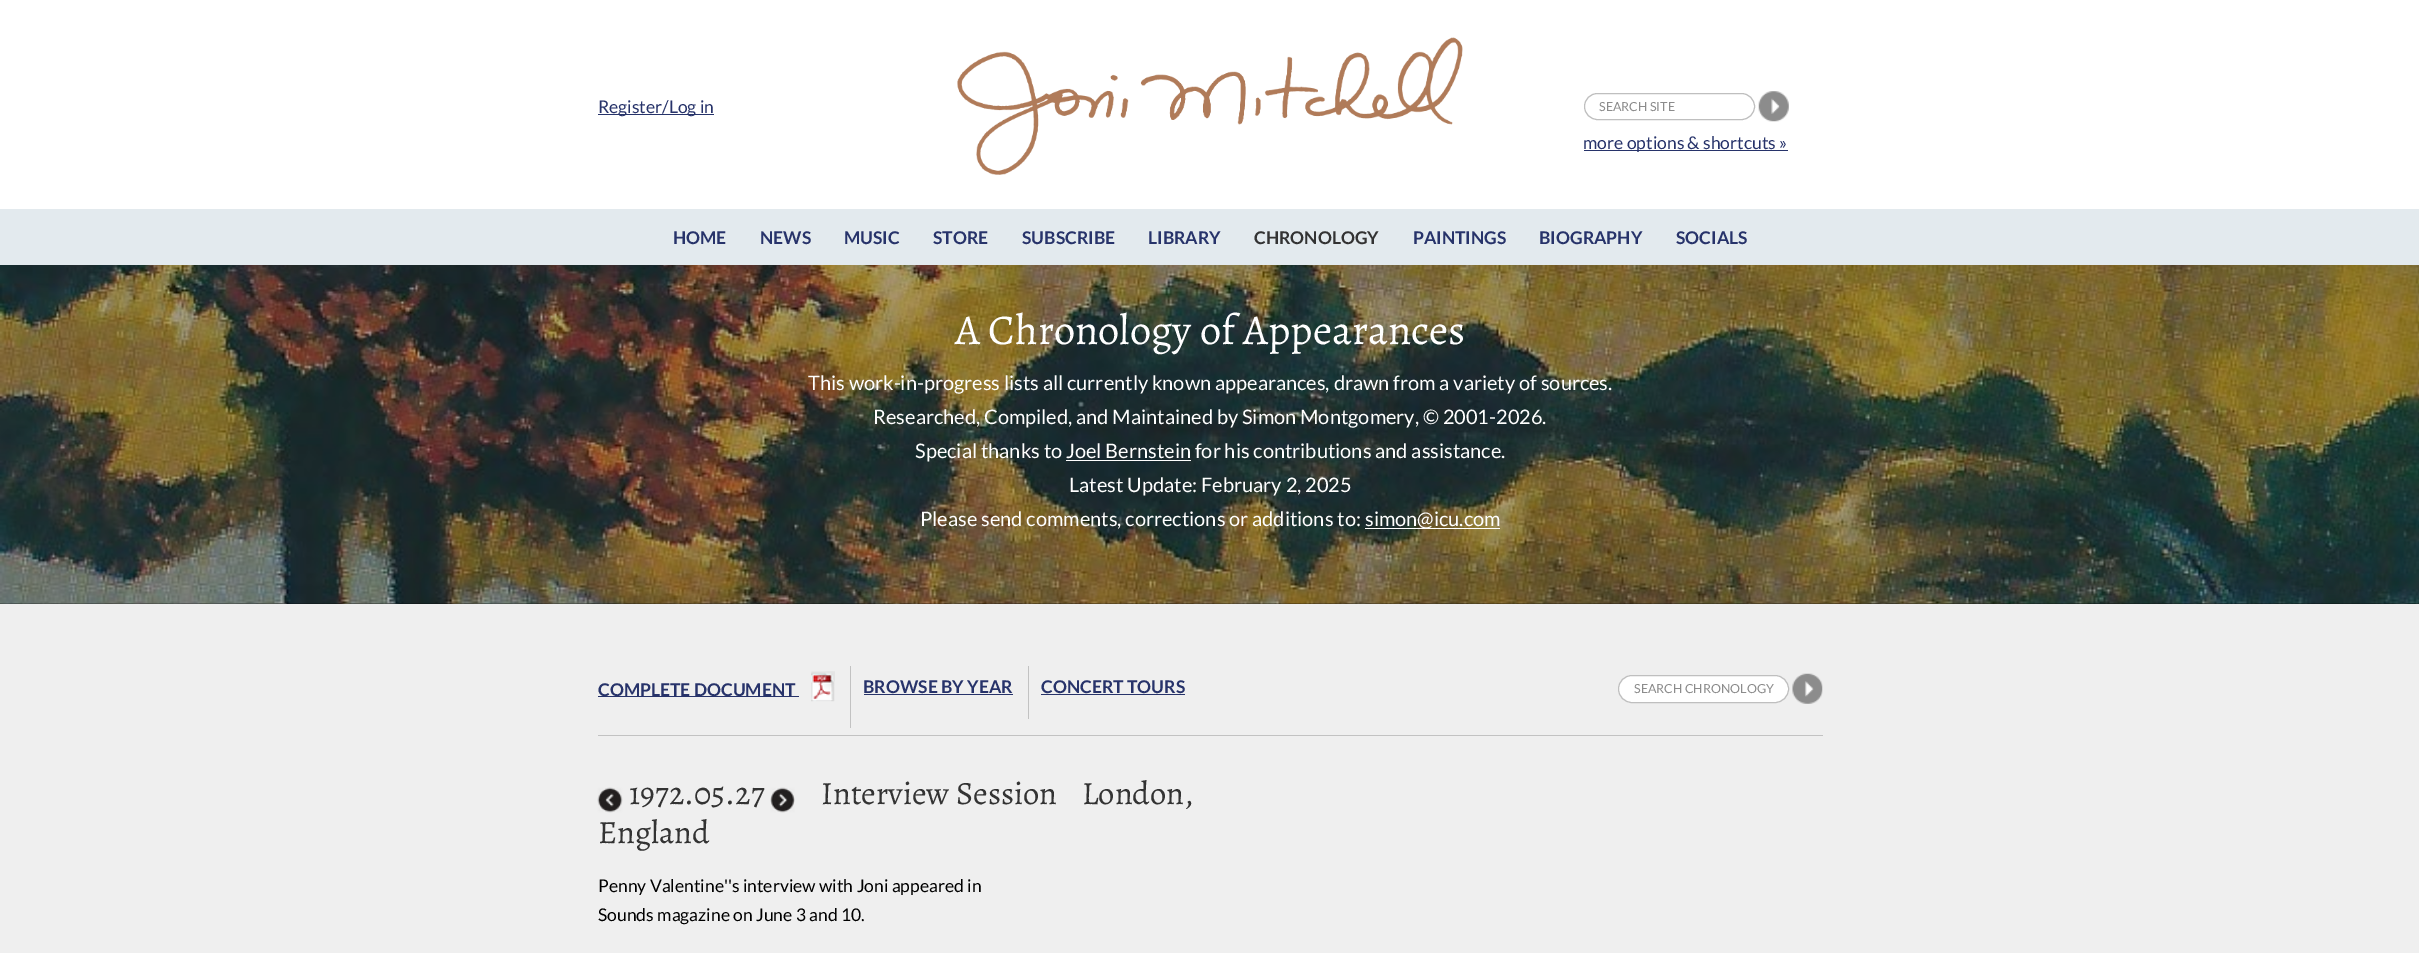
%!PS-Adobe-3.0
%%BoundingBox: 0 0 2419 953
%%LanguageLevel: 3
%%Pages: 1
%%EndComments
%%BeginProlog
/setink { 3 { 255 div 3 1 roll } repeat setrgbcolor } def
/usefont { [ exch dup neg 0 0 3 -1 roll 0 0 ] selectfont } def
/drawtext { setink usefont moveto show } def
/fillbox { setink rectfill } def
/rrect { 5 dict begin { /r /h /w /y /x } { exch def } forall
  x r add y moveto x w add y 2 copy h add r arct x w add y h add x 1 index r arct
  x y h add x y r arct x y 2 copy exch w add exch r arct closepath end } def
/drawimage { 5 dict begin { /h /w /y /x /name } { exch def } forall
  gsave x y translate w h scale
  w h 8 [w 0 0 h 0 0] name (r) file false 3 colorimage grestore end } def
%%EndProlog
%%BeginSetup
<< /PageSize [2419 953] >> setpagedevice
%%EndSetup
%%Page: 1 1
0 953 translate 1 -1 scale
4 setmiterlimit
0 0 2419 953 255 255 255 fillbox
(assets/img1.rgb) 957 37 506 138 drawimage
598 114 116 1 39 51 106 fillbox
(Register/Log in) 598 113 /Lato-Regular 17.5 39 51 106 drawtext
191 191 191 setink
1584.5 93.5 170 26 13 rrect stroke
(SEARCH SITE) 1599 111 /Lato-Regular 12.5 140 140 140 drawtext
(assets/img2.rgb) 1758 91 31 31 drawimage
1584 150 204 1 39 51 106 fillbox
(more options & shortcuts ») 1583 149 /Lato-Regular 17.5 39 51 106 drawtext
0 209 2419 56 227 234 238 fillbox
(HOME) 673 244 /Lato-Bold 17.5 39 51 106 drawtext
(NEWS) 760 244 /Lato-Bold 17.5 39 51 106 drawtext
(MUSIC) 844 244 /Lato-Bold 17.5 39 51 106 drawtext
(STORE) 933 244 /Lato-Bold 17.5 39 51 106 drawtext
(SUBSCRIBE) 1022 244 /Lato-Bold 17.5 39 51 106 drawtext
(LIBRARY) 1148 244 /Lato-Bold 17.5 39 51 106 drawtext
(CHRONOLOGY) 1254 244 /Lato-Bold 17.5 51 51 51 drawtext
(PAINTINGS) 1413 244 /Lato-Bold 17.5 39 51 106 drawtext
(BIOGRAPHY) 1539 244 /Lato-Bold 17.5 39 51 106 drawtext
(SOCIALS) 1676 244 /Lato-Bold 17.5 39 51 106 drawtext
(assets/img3.rgb) 0 265 2419 339 drawimage
(A Chronology of Appearances) 955 344 /Alegreya-Regular 42.5 255 255 255 drawtext
(This work-in-progress lists all currently known appearances, drawn from a variety of sources.) 808 390 /Lato-Regular 20 255 255 255 drawtext
(Researched, Compiled, and Maintained by Simon Montgomery, © 2001-2026.) 873 424 /Lato-Regular 20 255 255 255 drawtext
(Special thanks to Joel Bernstein for his contributions and assistance.) 915 458 /Lato-Regular 20 255 255 255 drawtext
1066 460 125 1 255 255 255 fillbox
(Latest Update: February 2, 2025) 1069 492 /Lato-Regular 20 255 255 255 drawtext
(Please send comments, corrections or additions to:) 920 526 /Lato-Regular 20 255 255 255 drawtext
1365 528 135 1 255 255 255 fillbox
(simon@icu.com) 1365 526 /Lato-Regular 20 255 255 255 drawtext
0 604 2419 349 239 239 239 fillbox
598 735 1225 1 194 194 194 fillbox
850 666 1 62 194 194 194 fillbox
598 696 201 1 39 51 106 fillbox
(COMPLETE DOCUMENT) 598 696 /Lato-Bold 17.5 39 51 106 drawtext
(assets/img4.rgb) 811 671 24 31 drawimage
1028 666 1 53 194 194 194 fillbox
(BROWSE BY YEAR) 863 693 /Lato-Bold 17.5 39 51 106 drawtext
864 694 149 1 39 51 106 fillbox
(CONCERT TOURS) 1041 693 /Lato-Bold 17.5 39 51 106 drawtext
1041 694 144 1 39 51 106 fillbox
255 255 255 setink
1618.5 675.5 170 27 13.5 rrect gsave fill grestore
191 191 191 setink
stroke
(SEARCH CHRONOLOGY) 1634 693 /Lato-Regular 12.5 140 140 140 drawtext
(assets/img5.rgb) 1792 673 31 31 drawimage
(assets/img6.rgb) 597 787 26 26 drawimage
(1972.05.27) 629 804 /Alegreya-Regular 32.5 51 51 51 drawtext
(assets/img7.rgb) 770 787 25 26 drawimage
(Interview Session) 821 804 /Alegreya-Regular 32.5 51 51 51 drawtext
(London,) 1082 804 /Alegreya-Regular 32.5 51 51 51 drawtext
(England) 598 843 /Alegreya-Regular 32.5 51 51 51 drawtext
(Penny Valentine''s interview with Joni appeared in) 598 892 /Lato-Regular 17.5 0 0 0 drawtext
(Sounds magazine on June 3 and 10.) 598 921 /Lato-Regular 17.5 0 0 0 drawtext
showpage
%%EOF
